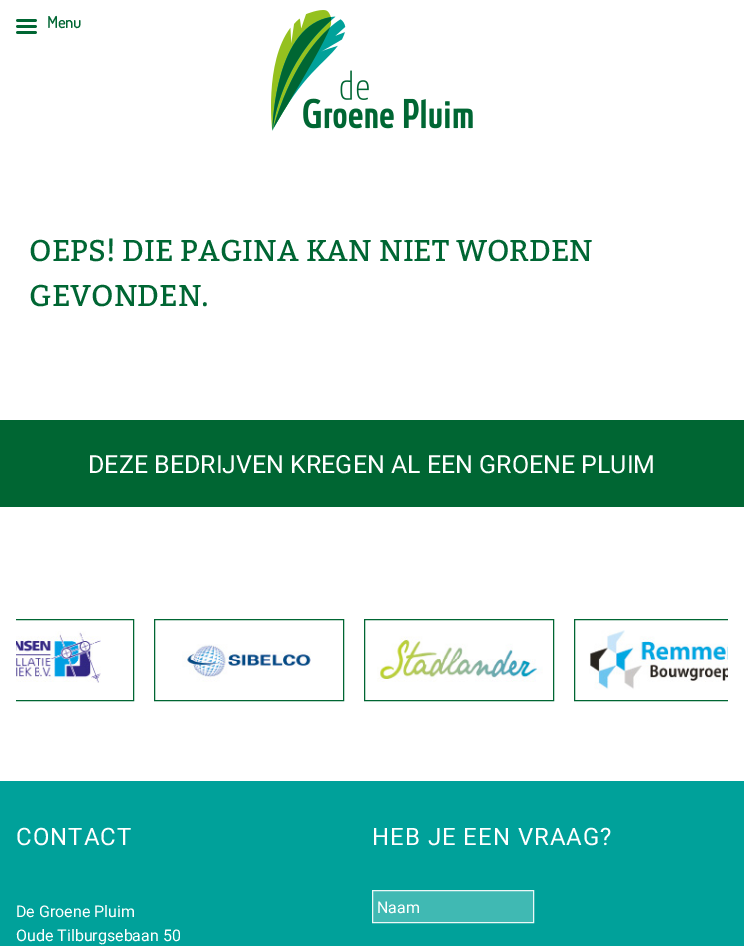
%!PS-Adobe-3.0
%%BoundingBox: 0 0 744 946
%%LanguageLevel: 3
%%Pages: 1
%%EndComments
%%BeginProlog
/setink { 3 { 255 div 3 1 roll } repeat setrgbcolor } def
/usefont { [ exch dup neg 0 0 3 -1 roll 0 0 ] selectfont } def
/drawtext { setink usefont moveto show } def
/fillbox { setink rectfill } def
/drawimage { 5 dict begin { /h /w /y /x /name } { exch def } forall
  gsave x y translate w h scale
  w h 8 [w 0 0 h 0 0] name (r) file false 3 colorimage grestore end } def
%%EndProlog
%%BeginSetup
<< /PageSize [744 946] >> setpagedevice
%%EndSetup
%%Page: 1 1
0 946 translate 1 -1 scale
4 setmiterlimit
0 0 744 946 255 255 255 fillbox
(assets/img1.rgb) 16 19 21 15 drawimage
(Menu) 47 28 /Dosis-Bold 16 0 102 51 drawtext
(assets/img2.rgb) 271 10 202 121 drawimage
(OEPS! DIE PAGINA KAN NIET WORDEN) 29 261 /Bitter-Regular 30 0 102 51 drawtext
(GEVONDEN.) 29 306 /Bitter-Regular 30 0 102 51 drawtext
0 420 744 87 0 102 51 fillbox
(DEZE BEDRIJVEN KREGEN AL EEN GROENE PLUIM) 88 473 /Roboto-Regular 25 255 255 255 drawtext
gsave
16 603 712 114 rectclip
0 102 51 setink
-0.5 619.5 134 81 rectstroke
grestore
(assets/img3.rgb) 16 631 85 52 drawimage
0 102 51 setink
154.5 619.5 189 81 rectstroke
(assets/img4.rgb) 182 644 129 38 drawimage
364.5 619.5 189 81 rectstroke
(assets/img5.rgb) 377 636 166 46 drawimage
gsave
16 603 712 114 rectclip
574.5 619.5 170 81 rectstroke
grestore
(assets/img6.rgb) 589 630 139 60 drawimage
0 781 744 165 0 161 154 fillbox
/Roboto-Regular 24 usefont
255 255 255 setink
16 845 moveto 1 0 (CONTACT) ashow
(De Groene Pluim) 16 917 /Roboto-Regular 16 255 255 255 drawtext
(Oude Tilburgsebaan 50) 16 941 /Roboto-Regular 16 255 255 255 drawtext
/Roboto-Regular 24 usefont
372 845 moveto 1 0 (HEB JE EEN VRAAG?) ashow
64 185 179 setink
372.5 890.5 moveto 533.5 890.5 lineto 533.5 922.5 lineto 372.5 922.5 lineto closepath gsave fill grestore
236 248 247 setink
stroke
(Naam) 377 913 /Roboto-Regular 16 255 255 255 drawtext
showpage
%%EOF
